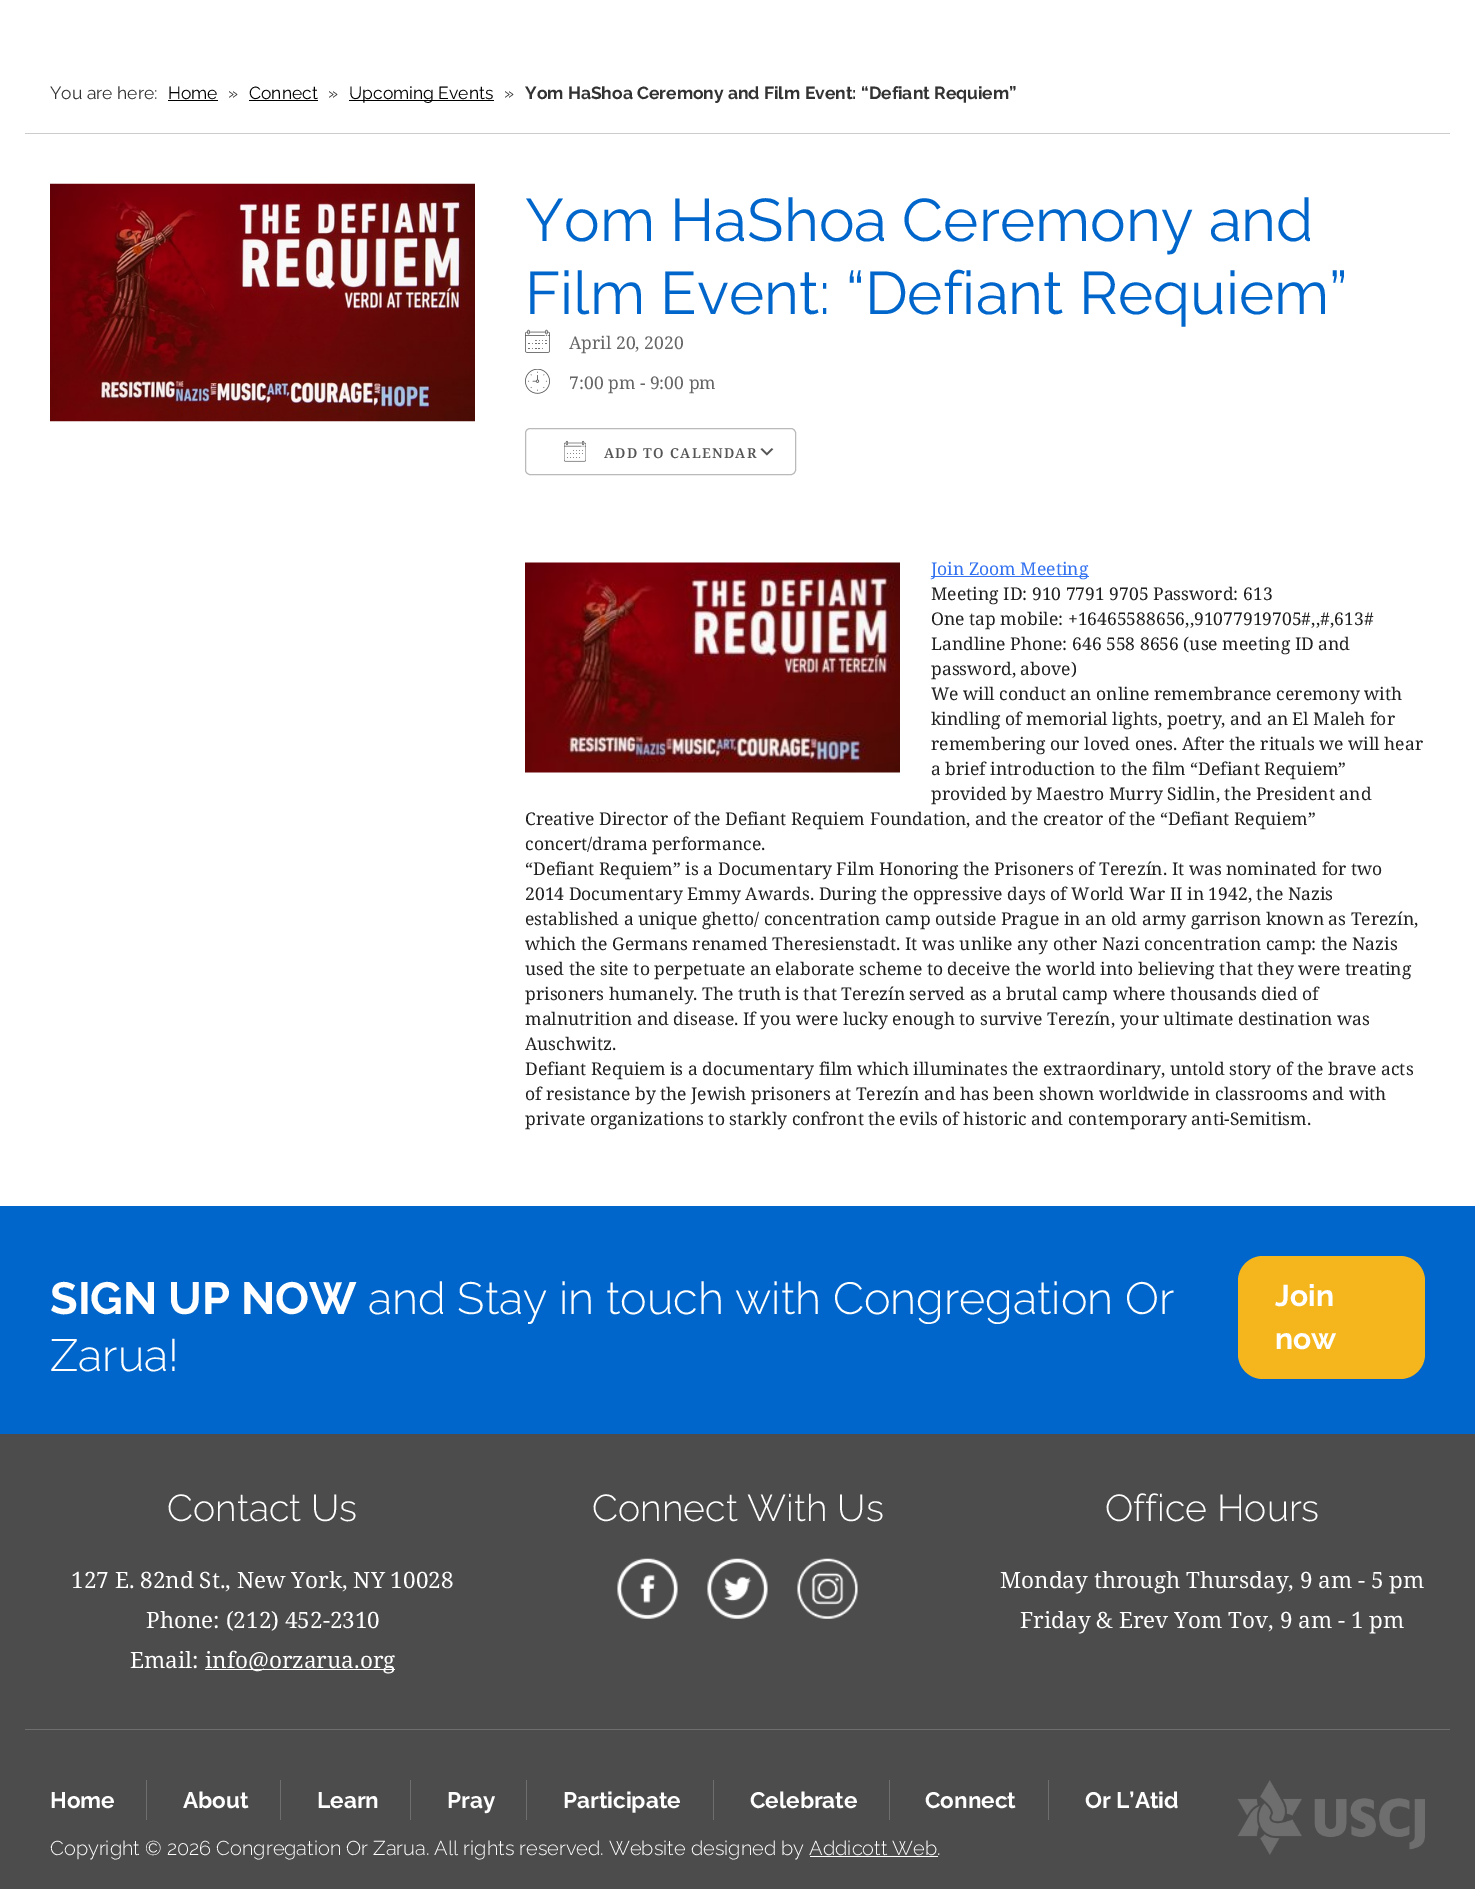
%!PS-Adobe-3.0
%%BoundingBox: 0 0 1475 1889
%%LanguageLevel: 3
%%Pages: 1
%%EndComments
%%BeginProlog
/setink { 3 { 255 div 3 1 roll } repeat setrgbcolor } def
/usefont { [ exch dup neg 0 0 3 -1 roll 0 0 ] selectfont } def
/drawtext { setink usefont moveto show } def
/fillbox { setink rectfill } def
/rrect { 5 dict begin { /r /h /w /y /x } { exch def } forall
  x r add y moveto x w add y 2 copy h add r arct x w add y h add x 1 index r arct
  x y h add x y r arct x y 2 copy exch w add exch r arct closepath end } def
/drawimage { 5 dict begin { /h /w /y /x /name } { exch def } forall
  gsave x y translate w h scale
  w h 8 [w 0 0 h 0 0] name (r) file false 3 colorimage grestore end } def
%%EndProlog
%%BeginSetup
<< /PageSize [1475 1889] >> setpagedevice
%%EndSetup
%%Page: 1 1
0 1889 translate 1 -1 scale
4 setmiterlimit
0 0 1475 1889 76 76 76 fillbox
0 0 1475 1206 255 255 255 fillbox
25 133 1425 1 204 204 204 fillbox
(You are here:) 50 99 /Raleway-Regular 17.5 51 51 51 drawtext
(Home) 168 99 /Raleway-Regular 17.5 0 0 0 drawtext
168 100 50 1 0 0 0 fillbox
(») 228 99 /Raleway-Regular 17.5 51 51 51 drawtext
(Connect) 249 99 /Raleway-Regular 17.5 0 0 0 drawtext
249 100 69 1 0 0 0 fillbox
(») 328 99 /Raleway-Regular 17.5 51 51 51 drawtext
349 100 145 1 0 0 0 fillbox
(Upcoming Events) 349 99 /Raleway-Regular 17.5 0 0 0 drawtext
(») 504 99 /Raleway-Regular 17.5 51 51 51 drawtext
(Yom HaShoa Ceremony and Film Event: “Defiant Requiem”) 525 99 /Raleway-Bold 17.5 51 51 51 drawtext
(assets/img1.rgb) 50 183 425 239 drawimage
(Yom HaShoa Ceremony and) 525 241 /Raleway-Regular 60 0 102 203 drawtext
(Film Event: “Defiant Requiem”) 525 314 /Raleway-Regular 60 0 102 203 drawtext
(assets/img2.rgb) 525 329 25 24 drawimage
(April 20, 2020) 569 349 /NotoSerif-Regular 17.5 102 102 102 drawtext
(assets/img3.rgb) 525 369 25 25 drawimage
(7:00 pm - 9:00 pm) 569 389 /NotoSerif-Regular 17.5 102 102 102 drawtext
(assets/img4.rgb) 760 448 14 8 drawimage
186 186 186 setink
525.5 428.5 270 46 4.5 rrect stroke
(assets/img5.rgb) 564 440 22 22 drawimage
/NotoSerif-SemiBold 13.75 usefont
84 84 84 setink
604 458 moveto 1.25 0 (ADD TO CALENDAR) ashow
(assets/img6.rgb) 525 562 375 211 drawimage
931 576 158 1 51 114 240 fillbox
(Join Zoom Meeting) 931 575 /NotoSerif-Regular 17.5 51 114 240 drawtext
(Meeting ID: 910 7791 9705 Password: 613) 931 600 /NotoSerif-Regular 17.5 33 33 33 drawtext
(One tap mobile: +16465588656,,91077919705#,,#,613#) 931 625 /NotoSerif-Regular 17.5 33 33 33 drawtext
(Landline Phone: 646 558 8656 \(use meeting ID and) 931 650 /NotoSerif-Regular 17.5 33 33 33 drawtext
(password, above\)) 931 675 /NotoSerif-Regular 17.5 33 33 33 drawtext
(We will conduct an online remembrance ceremony with) 931 700 /NotoSerif-Regular 17.5 33 33 33 drawtext
(kindling of memorial lights, poetry, and an El Maleh for) 931 725 /NotoSerif-Regular 17.5 33 33 33 drawtext
(remembering our loved ones. After the rituals we will hear) 931 750 /NotoSerif-Regular 17.5 33 33 33 drawtext
(a brief introduction to the film “Defiant Requiem”) 931 775 /NotoSerif-Regular 17.5 33 33 33 drawtext
(provided by Maestro Murry Sidlin, the President and) 931 800 /NotoSerif-Regular 17.5 33 33 33 drawtext
(Creative Director of the Defiant Requiem Foundation, and the creator of the “Defiant Requiem”) 525 825 /NotoSerif-Regular 17.5 33 33 33 drawtext
(concert/drama performance.) 525 850 /NotoSerif-Regular 17.5 33 33 33 drawtext
(“Defiant Requiem” is a Documentary Film Honoring the Prisoners of Terezín. It was nominated for two) 525 875 /NotoSerif-Regular 17.5 33 33 33 drawtext
(2014 Documentary Emmy Awards. During the oppressive days of World War II in 1942, the Nazis) 525 900 /NotoSerif-Regular 17.5 33 33 33 drawtext
(established a unique ghetto/ concentration camp outside Prague in an old army garrison known as Terezín,) 525 925 /NotoSerif-Regular 17.5 33 33 33 drawtext
(which the Germans renamed Theresienstadt. It was unlike any other Nazi concentration camp: the Nazis) 525 950 /NotoSerif-Regular 17.5 33 33 33 drawtext
(used the site to perpetuate an elaborate scheme to deceive the world into believing that they were treating) 525 975 /NotoSerif-Regular 17.5 33 33 33 drawtext
(prisoners humanely. The truth is that Terezín served as a brutal camp where thousands died of) 525 1000 /NotoSerif-Regular 17.5 33 33 33 drawtext
(malnutrition and disease. If you were lucky enough to survive Terezín, your ultimate destination was) 525 1025 /NotoSerif-Regular 17.5 33 33 33 drawtext
(Auschwitz.) 525 1050 /NotoSerif-Regular 17.5 33 33 33 drawtext
(Defiant Requiem is a documentary film which illuminates the extraordinary, untold story of the brave acts) 525 1075 /NotoSerif-Regular 17.5 33 33 33 drawtext
(of resistance by the Jewish prisoners at Terezín and has been shown worldwide in classrooms and with) 525 1100 /NotoSerif-Regular 17.5 33 33 33 drawtext
(private organizations to starkly confront the evils of historic and contemporary anti-Semitism.) 525 1125 /NotoSerif-Regular 17.5 33 33 33 drawtext
0 1206 1475 228 0 102 203 fillbox
(SIGN UP NOW) 50 1314 /Raleway-Bold 45 255 255 255 drawtext
(and Stay in touch with Congregation Or) 368 1314 /Raleway-Light 45 255 255 255 drawtext
(Zarua!) 50 1371 /Raleway-Light 45 255 255 255 drawtext
245 182 29 setink
1238 1256 187 123 25 rrect fill
(Join) 1275 1306 /Raleway-Bold 30 255 255 255 drawtext
(now) 1275 1349 /Raleway-Bold 30 255 255 255 drawtext
(Contact Us) 167 1521 /Raleway-Light 37.5 255 255 255 drawtext
(127 E. 82nd St., New York, NY 10028) 71 1588 /NotoSerif-Regular 22.5 255 255 255 drawtext
(Phone: \(212\) 452-2310) 146 1628 /NotoSerif-Regular 22.5 255 255 255 drawtext
(Email:) 130 1668 /NotoSerif-Regular 22.5 255 255 255 drawtext
205 1669 190 1 255 255 255 fillbox
(info@orzarua.org) 205 1668 /NotoSerif-Regular 22.5 255 255 255 drawtext
(Connect With Us) 592 1521 /Raleway-Light 37.5 255 255 255 drawtext
(assets/img7.rgb) 617 1558 61 61 drawimage
(assets/img8.rgb) 707 1558 61 61 drawimage
(assets/img9.rgb) 797 1558 61 61 drawimage
(Office Hours) 1105 1521 /Raleway-Light 37.5 255 255 255 drawtext
(Monday through Thursday, 9 am - 5 pm) 1000 1588 /NotoSerif-Regular 22.5 255 255 255 drawtext
(Friday & Erev Yom Tov, 9 am - 1 pm) 1020 1628 /NotoSerif-Regular 22.5 255 255 255 drawtext
25 1729 1425 1 110 110 110 fillbox
146 1780 1 40 110 110 110 fillbox
(Home) 50 1808 /Raleway-Bold 22.5 255 255 255 drawtext
280 1780 1 40 110 110 110 fillbox
(About) 183 1808 /Raleway-Bold 22.5 255 255 255 drawtext
410 1780 1 40 110 110 110 fillbox
(Learn) 317 1808 /Raleway-Bold 22.5 255 255 255 drawtext
526 1780 1 40 110 110 110 fillbox
(Pray) 447 1808 /Raleway-Bold 22.5 255 255 255 drawtext
713 1780 1 40 110 110 110 fillbox
(Participate) 563 1808 /Raleway-Bold 22.5 255 255 255 drawtext
889 1780 1 40 110 110 110 fillbox
(Celebrate) 750 1808 /Raleway-Bold 22.5 255 255 255 drawtext
1048 1780 1 40 110 110 110 fillbox
(Connect) 925 1808 /Raleway-Bold 22.5 255 255 255 drawtext
(Or L’Atid) 1085 1808 /Raleway-Bold 22.5 255 255 255 drawtext
(Copyright © 2026 Congregation Or Zarua. All rights reserved. Website designed by Addicott Web.) 50 1855 /Raleway-Light 20 255 255 255 drawtext
810 1856 128 1 255 255 255 fillbox
(assets/img10.rgb) 1237 1780 188 75 drawimage
showpage
%%EOF
